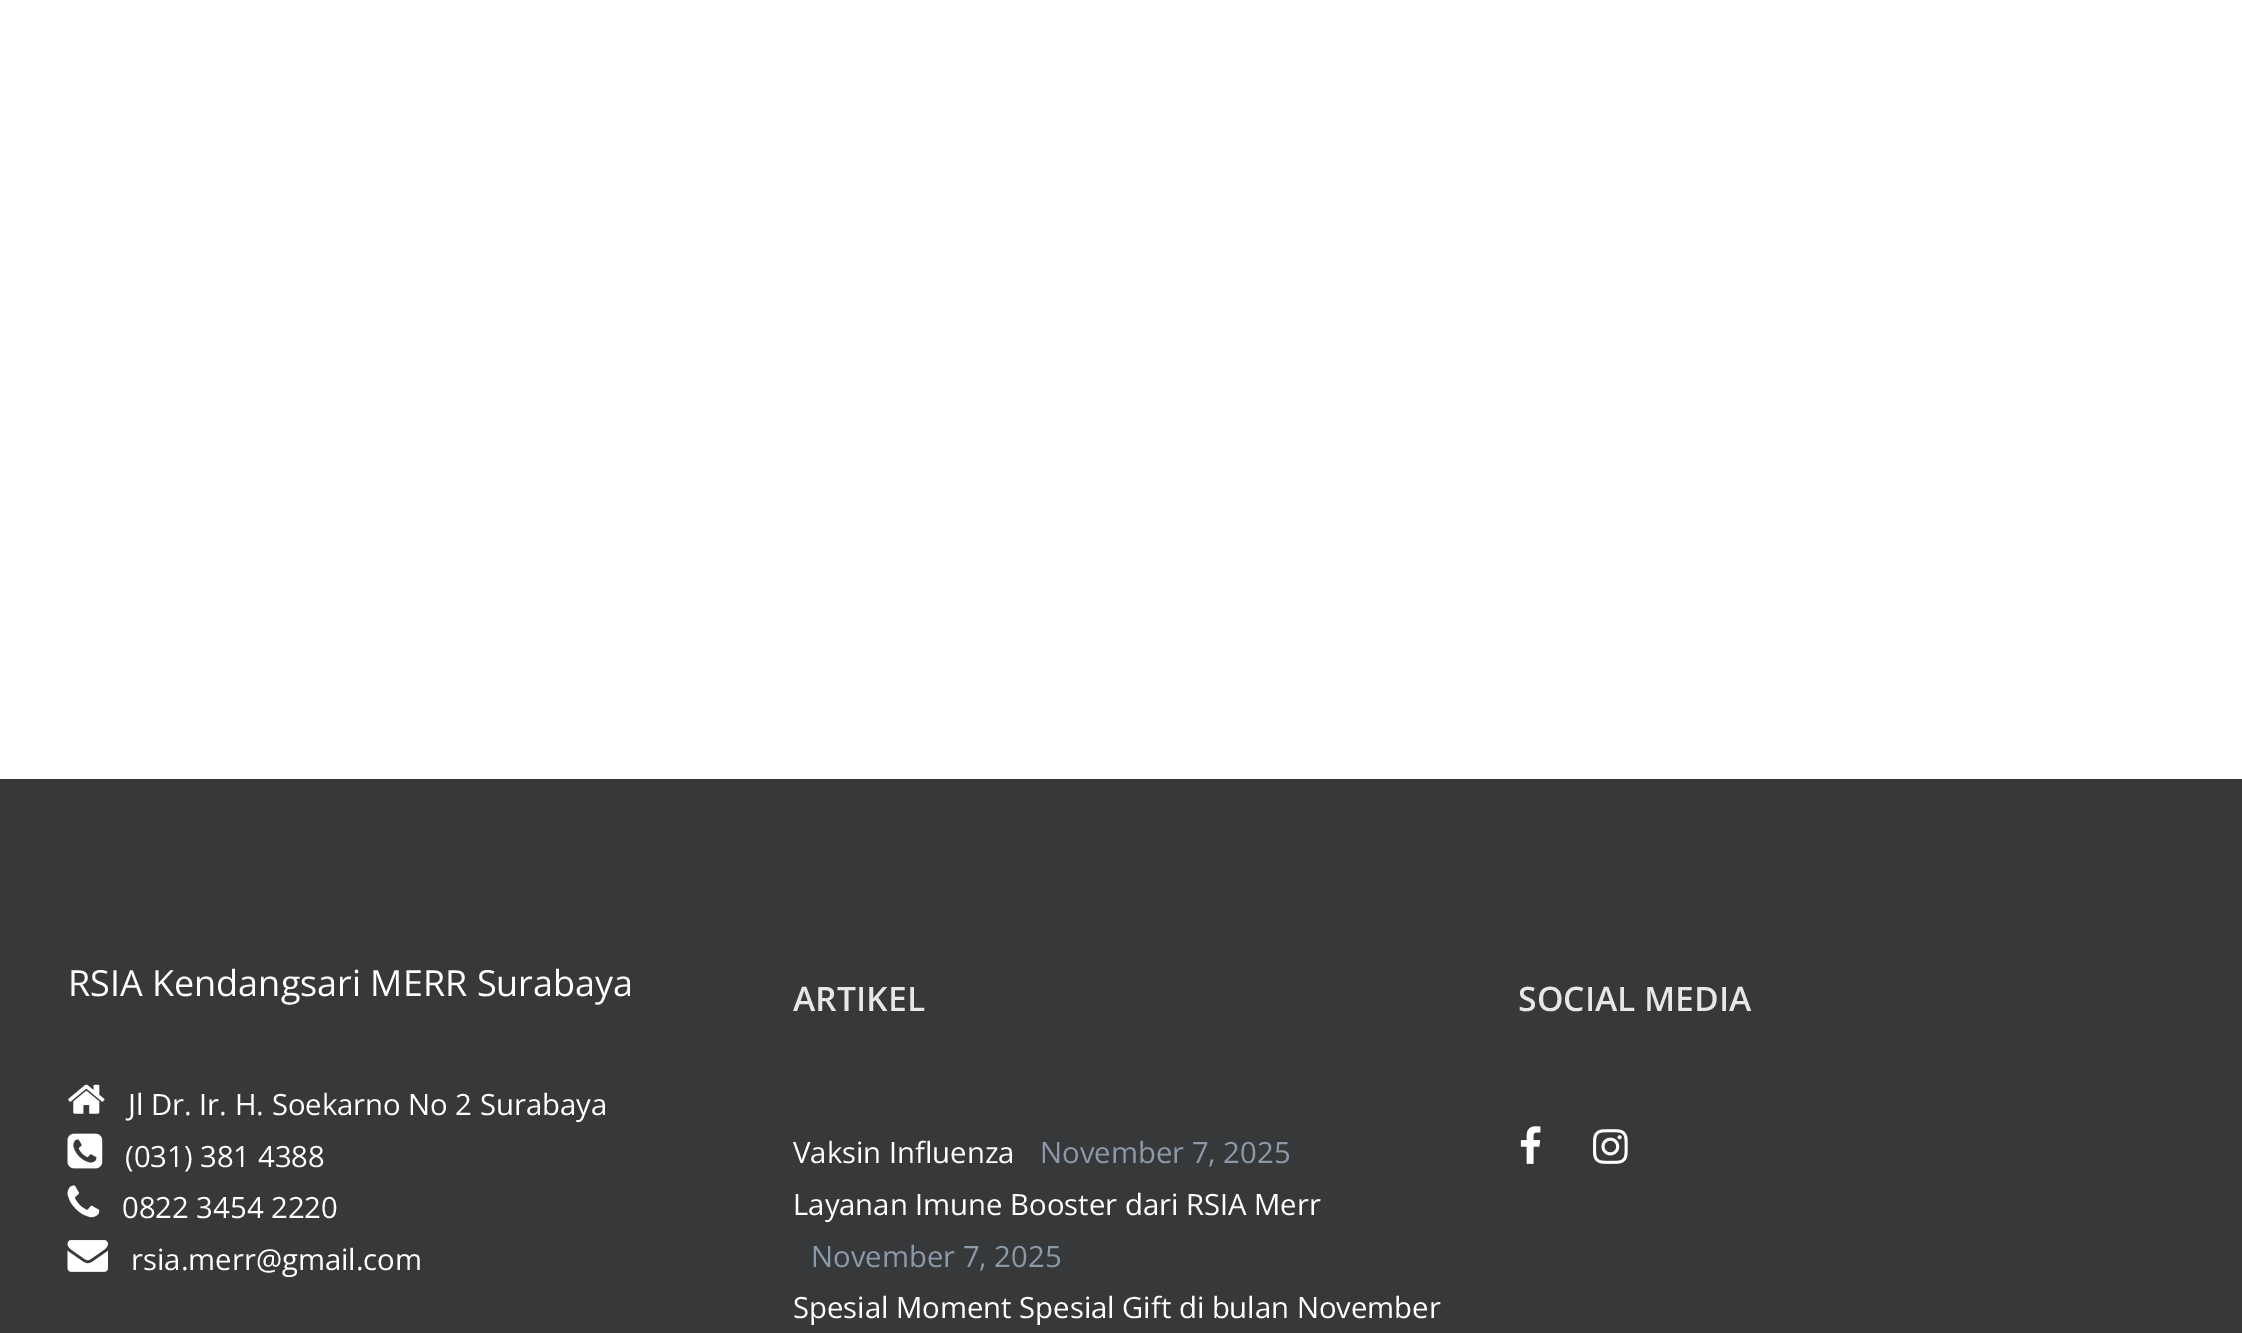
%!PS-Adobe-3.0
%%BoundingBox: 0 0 2242 1333
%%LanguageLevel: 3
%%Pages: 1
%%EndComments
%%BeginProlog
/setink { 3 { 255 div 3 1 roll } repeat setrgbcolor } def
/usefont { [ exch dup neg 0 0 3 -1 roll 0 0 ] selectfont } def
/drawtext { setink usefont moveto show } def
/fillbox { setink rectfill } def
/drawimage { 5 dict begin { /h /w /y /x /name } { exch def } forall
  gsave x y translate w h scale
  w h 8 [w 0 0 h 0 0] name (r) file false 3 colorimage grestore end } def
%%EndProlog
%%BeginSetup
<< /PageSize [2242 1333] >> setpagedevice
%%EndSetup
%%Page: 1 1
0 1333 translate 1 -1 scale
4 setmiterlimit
0 0 2242 1333 255 255 255 fillbox
0 779 2242 554 54 56 57 fillbox
(RSIA Kendangsari MERR Surabaya) 68 996 /OpenSans-Regular 36 255 255 255 drawtext
(assets/img1.rgb) 68 1084 37 30 drawimage
(Jl Dr. Ir. H. Soekarno No 2 Surabaya) 128 1115 /OpenSans-Regular 29.25 255 255 255 drawtext
(assets/img2.rgb) 67 1133 36 36 drawimage
(\(031\) 381 4388) 125 1167 /OpenSans-Regular 29.25 255 255 255 drawtext
(assets/img3.rgb) 67 1185 33 33 drawimage
(0822 3454 2220) 122 1218 /OpenSans-Regular 29.25 255 255 255 drawtext
(assets/img4.rgb) 67 1240 41 32 drawimage
(rsia.merr@gmail.com) 131 1270 /OpenSans-Regular 29.25 255 255 255 drawtext
(ARTIKEL) 793 1011 /OpenSans-SemiBold 33.75 230 231 232 drawtext
(Vaksin Influenza) 793 1163 /OpenSans-Regular 29.25 255 255 255 drawtext
(November 7, 2025) 1040 1163 /OpenSans-Regular 29.25 140 153 169 drawtext
(Layanan Imune Booster dari RSIA Merr) 793 1215 /OpenSans-Regular 29.25 255 255 255 drawtext
(November 7, 2025) 811 1267 /OpenSans-Regular 29.25 140 153 169 drawtext
(Spesial Moment Spesial Gift di bulan November) 793 1318 /OpenSans-Regular 29.25 255 255 255 drawtext
(SOCIAL MEDIA) 1518 1011 /OpenSans-SemiBold 33.75 230 231 232 drawtext
(assets/img5.rgb) 1520 1126 21 38 drawimage
(assets/img6.rgb) 1593 1129 35 35 drawimage
showpage
%%EOF
